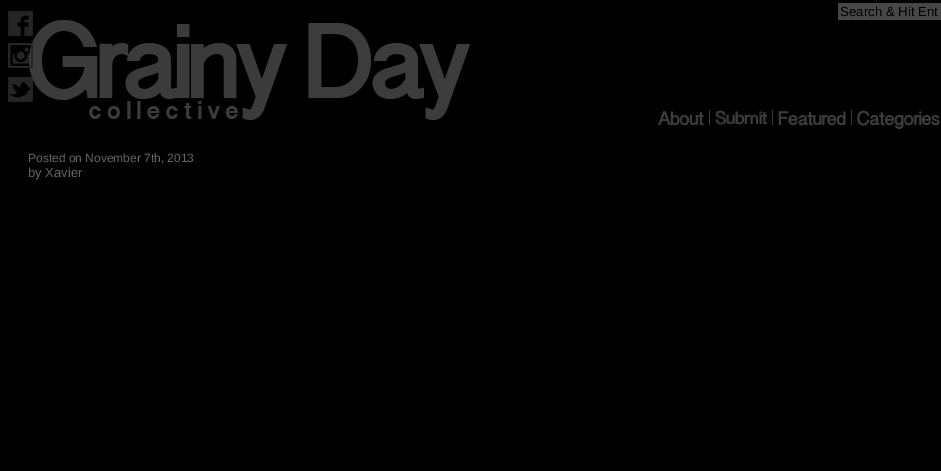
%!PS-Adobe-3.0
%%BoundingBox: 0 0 941 471
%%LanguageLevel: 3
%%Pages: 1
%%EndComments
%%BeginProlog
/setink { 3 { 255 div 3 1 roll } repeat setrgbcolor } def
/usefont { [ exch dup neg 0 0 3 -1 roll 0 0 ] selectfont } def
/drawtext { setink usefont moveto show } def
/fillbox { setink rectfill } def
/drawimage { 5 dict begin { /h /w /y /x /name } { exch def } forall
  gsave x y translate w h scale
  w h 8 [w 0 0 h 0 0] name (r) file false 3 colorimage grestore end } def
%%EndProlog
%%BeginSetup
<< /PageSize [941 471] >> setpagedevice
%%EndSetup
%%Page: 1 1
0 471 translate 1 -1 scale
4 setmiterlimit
0 0 941 471 0 0 0 fillbox
(assets/img4.rgb) 29 20 441 100 drawimage
(assets/img1.rgb) 8 11 25 25 drawimage
(assets/img2.rgb) 8 43 25 25 drawimage
(assets/img3.rgb) 8 77 25 25 drawimage
838 3 103 17 71 71 71 fillbox
(Search & Hit Ent) 840 16 /LiberationSans-Regular 13.25 0 0 0 drawtext
(assets/img5.rgb) 658 111 46 15 drawimage
709 110 1 15 60 60 60 fillbox
(assets/img6.rgb) 715 110 53 15 drawimage
772 110 1 15 60 60 60 fillbox
(assets/img7.rgb) 778 111 68 15 drawimage
851 110 1 15 60 60 60 fillbox
(assets/img8.rgb) 857 110 83 19 drawimage
(Posted on November 7th, 2013) 28 162 /LiberationSans-Regular 12 102 102 102 drawtext
(by Xavier) 28 177 /LiberationSans-Regular 13 102 102 102 drawtext
showpage
%%EOF
